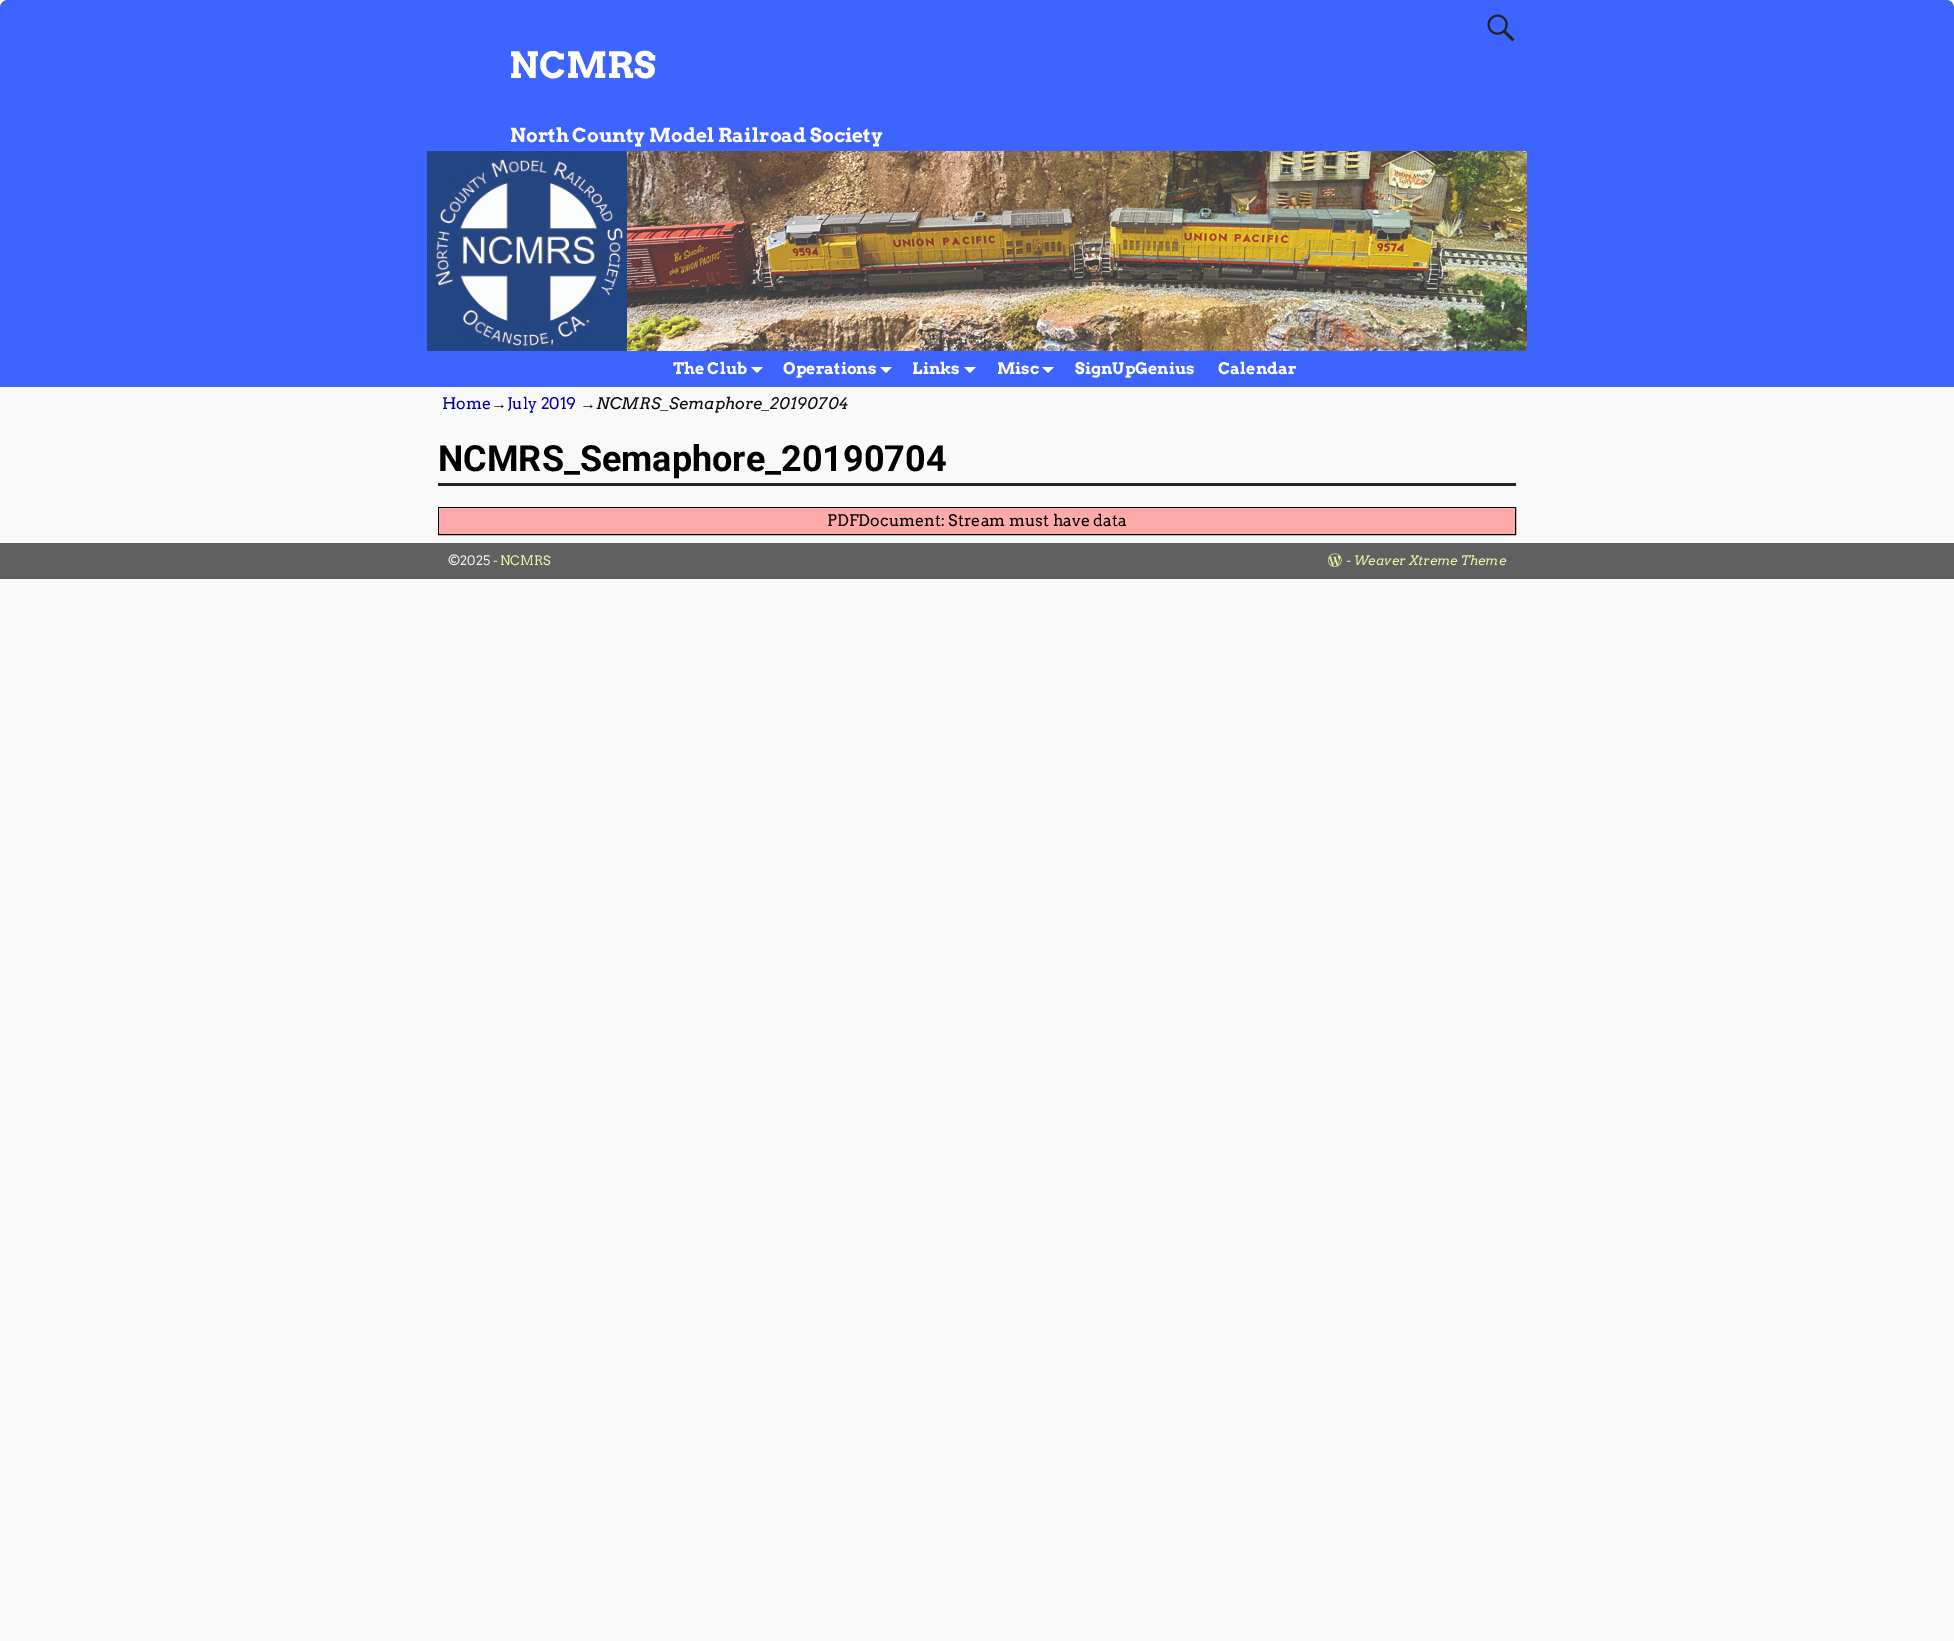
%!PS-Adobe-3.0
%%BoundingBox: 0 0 1954 1641
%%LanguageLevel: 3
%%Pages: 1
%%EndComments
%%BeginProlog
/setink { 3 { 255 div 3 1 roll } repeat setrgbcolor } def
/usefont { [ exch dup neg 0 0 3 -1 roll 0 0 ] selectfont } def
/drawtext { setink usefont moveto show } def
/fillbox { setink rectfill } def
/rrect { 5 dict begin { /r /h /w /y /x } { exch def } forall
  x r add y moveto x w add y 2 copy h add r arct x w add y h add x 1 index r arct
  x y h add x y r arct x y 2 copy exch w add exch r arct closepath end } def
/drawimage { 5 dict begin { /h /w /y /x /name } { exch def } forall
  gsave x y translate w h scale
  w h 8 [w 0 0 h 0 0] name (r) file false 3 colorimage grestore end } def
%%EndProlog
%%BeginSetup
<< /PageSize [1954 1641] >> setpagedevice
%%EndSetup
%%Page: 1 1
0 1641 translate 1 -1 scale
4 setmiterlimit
0 0 1954 1641 249 249 249 fillbox
61 100 255 setink
0 0 1954 387 8 rrect fill
(assets/img1.rgb) 1487 14 28 28 drawimage
(NCMRS) 509 78 /Arvo-Bold 36 255 255 255 drawtext
(North County Model Railroad Society) 510 142 /Arvo-Bold 19.25 255 252 247 drawtext
(assets/img2.rgb) 427 151 1100 200 drawimage
0 379 1954 8 61 100 255 fillbox
(The Club) 673 374 /Arvo-Bold 16 255 255 255 drawtext
751 367 moveto 763 367 lineto 757 373 lineto closepath fill
(Operations) 783 374 /Arvo-Bold 16 255 255 255 drawtext
880 367 moveto 892 367 lineto 886 373 lineto closepath fill
(Links) 912 374 /Arvo-Bold 16 255 255 255 drawtext
964 367 moveto 976 367 lineto 970 373 lineto closepath fill
(Misc) 997 374 /Arvo-Bold 16 255 255 255 drawtext
1042 367 moveto 1054 367 lineto 1048 373 lineto closepath fill
(SignUpGenius) 1075 374 /Arvo-Bold 16 255 255 255 drawtext
(Calendar) 1218 374 /Arvo-Bold 16 255 255 255 drawtext
(Home) 442 409 /Arvo-Regular 16 0 0 168 drawtext
(→) 491 409 /LiberationSerif-Regular 16 12 12 12 drawtext
(July 2019) 507 409 /Arvo-Regular 16 0 0 168 drawtext
(→) 580 409 /LiberationSerif-Regular 16 12 12 12 drawtext
(NCMRS_Semaphore_20190704) 596 409 /Arvo-Italic 16 12 12 12 drawtext
438 483 1078 3 34 34 34 fillbox
(NCMRS_Semaphore_20190704) 438 471 /Roboto-Bold 36 0 0 0 drawtext
438.5 507.5 1077 27 rectstroke
439 508 1076 26 255 170 170 fillbox
(PDFDocument: Stream must have data) 827 526 /Arvo-Regular 16 0 0 0 drawtext
0 543 1954 36 96 96 96 fillbox
(©2025 -) 448 565 /Arvo-Regular 13 242 242 242 drawtext
(NCMRS) 500 565 /Arvo-Regular 13 237 237 170 drawtext
(assets/img3.rgb) 1328 553 14 14 drawimage
(-) 1346 565 /Arvo-Italic 13 242 242 242 drawtext
(Weaver Xtreme Theme) 1354 565 /Arvo-Italic 13 237 237 170 drawtext
showpage
%%EOF
